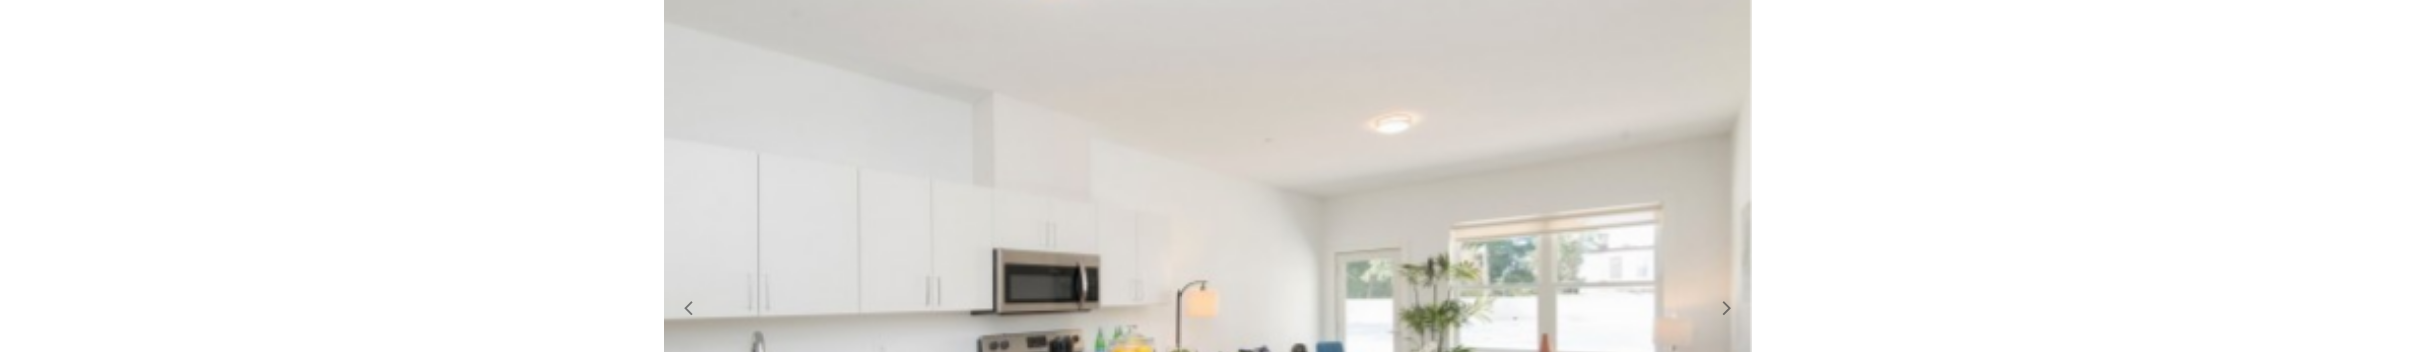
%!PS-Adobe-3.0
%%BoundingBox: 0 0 2415 352
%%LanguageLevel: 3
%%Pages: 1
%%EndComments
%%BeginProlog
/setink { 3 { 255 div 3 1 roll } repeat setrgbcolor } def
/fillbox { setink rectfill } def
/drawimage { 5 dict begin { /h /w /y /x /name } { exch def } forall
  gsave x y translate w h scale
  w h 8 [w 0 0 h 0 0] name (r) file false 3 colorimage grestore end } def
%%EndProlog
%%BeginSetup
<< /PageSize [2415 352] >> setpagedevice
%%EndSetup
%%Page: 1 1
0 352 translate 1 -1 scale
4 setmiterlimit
0 0 2415 352 255 255 255 fillbox
(assets/img1.rgb) 664 0 1088 352 drawimage
(assets/img2.rgb) 684 301 9 15 drawimage
(assets/img3.rgb) 1722 301 9 15 drawimage
showpage
%%EOF
